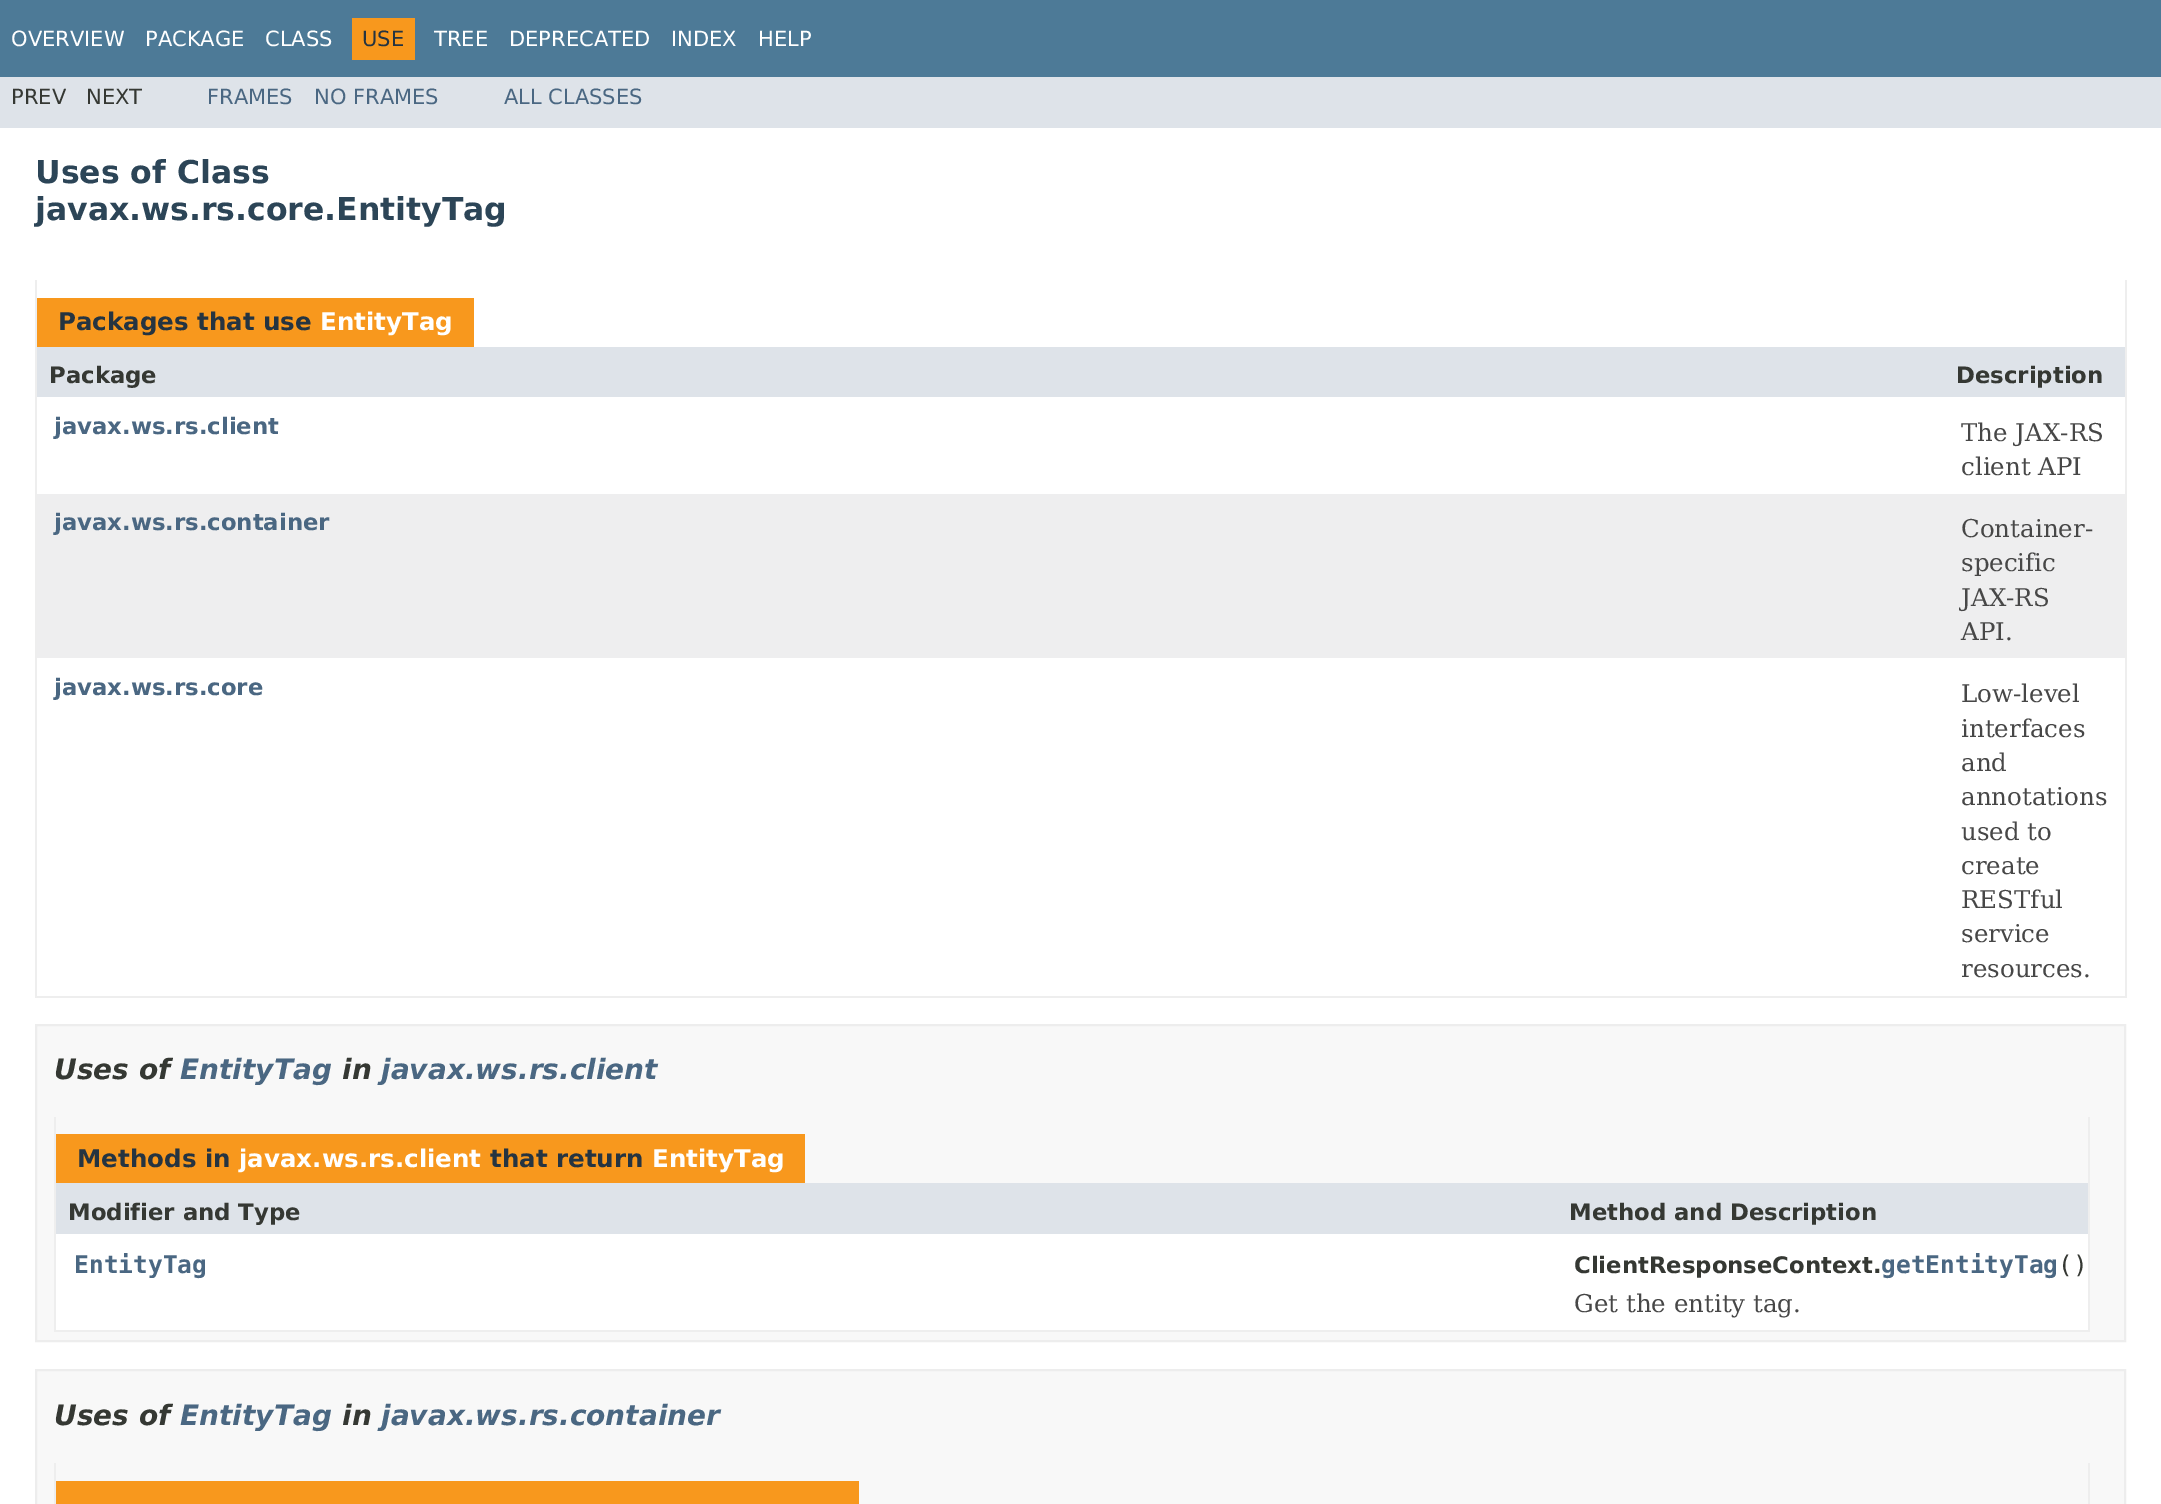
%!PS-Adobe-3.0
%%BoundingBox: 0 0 2161 1504
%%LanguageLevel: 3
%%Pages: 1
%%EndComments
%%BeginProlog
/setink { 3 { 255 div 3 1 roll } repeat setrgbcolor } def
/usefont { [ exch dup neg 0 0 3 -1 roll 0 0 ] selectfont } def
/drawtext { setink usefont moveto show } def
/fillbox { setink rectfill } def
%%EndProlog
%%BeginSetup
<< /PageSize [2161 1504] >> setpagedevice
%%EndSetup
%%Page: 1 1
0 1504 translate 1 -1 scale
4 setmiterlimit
0 0 2161 1504 255 255 255 fillbox
0 0 2161 77 77 122 151 fillbox
(OVERVIEW) 11 46 /DejaVuSans-Regular 21 255 255 255 drawtext
(PACKAGE) 145 46 /DejaVuSans-Regular 21 255 255 255 drawtext
(CLASS) 265 46 /DejaVuSans-Regular 21 255 255 255 drawtext
352 18 63 42 248 152 29 fillbox
(USE) 362 46 /DejaVuSans-Regular 21 37 52 65 drawtext
(TREE) 434 46 /DejaVuSans-Regular 21 255 255 255 drawtext
(DEPRECATED) 509 46 /DejaVuSans-Regular 21 255 255 255 drawtext
(INDEX) 671 46 /DejaVuSans-Regular 21 255 255 255 drawtext
(HELP) 758 46 /DejaVuSans-Regular 21 255 255 255 drawtext
0 77 2161 51 222 227 233 fillbox
(PREV) 11 104 /DejaVuSans-Regular 21 53 56 51 drawtext
(NEXT) 86 104 /DejaVuSans-Regular 21 53 56 51 drawtext
(FRAMES) 207 104 /DejaVuSans-Regular 21 74 103 130 drawtext
(NO FRAMES) 314 104 /DejaVuSans-Regular 21 74 103 130 drawtext
(ALL CLASSES) 504 104 /DejaVuSans-Regular 21 74 103 130 drawtext
(Uses of Class) 35 183 /DejaVuSans-Bold 31.5 44 69 87 drawtext
(javax.ws.rs.core.EntityTag) 35 220 /DejaVuSans-Bold 31.5 44 69 87 drawtext
2125 280 2 718 238 238 238 fillbox
35 996 2091 2 238 238 238 fillbox
35 280 2 718 238 238 238 fillbox
37 298 437 49 248 152 29 fillbox
(Packages that use) 58 330 /DejaVuSans-Bold 24.5 37 52 65 drawtext
(EntityTag) 320 330 /DejaVuSans-Bold 24.5 255 255 255 drawtext
37 347 2088 50 222 227 233 fillbox
(Package) 49 383 /DejaVuSans-Bold 22.75 53 56 51 drawtext
(Description) 1956 383 /DejaVuSans-Bold 22.75 53 56 51 drawtext
(javax.ws.rs.client) 54 434 /DejaVuSans-Bold 22.75 74 103 130 drawtext
(The JAX-RS) 1961 441 /DejaVuSerif-Regular 24.5 71 71 71 drawtext
(client API) 1961 475 /DejaVuSerif-Regular 24.5 71 71 71 drawtext
37 494 2088 164 238 238 239 fillbox
(javax.ws.rs.container) 54 530 /DejaVuSans-Bold 22.75 74 103 130 drawtext
(Container-) 1961 537 /DejaVuSerif-Regular 24.5 71 71 71 drawtext
(specific) 1961 571 /DejaVuSerif-Regular 24.5 71 71 71 drawtext
(JAX-RS) 1961 606 /DejaVuSerif-Regular 24.5 71 71 71 drawtext
(API.) 1961 640 /DejaVuSerif-Regular 24.5 71 71 71 drawtext
(javax.ws.rs.core) 54 695 /DejaVuSans-Bold 22.75 74 103 130 drawtext
(Low-level) 1961 702 /DejaVuSerif-Regular 24.5 71 71 71 drawtext
(interfaces) 1961 737 /DejaVuSerif-Regular 24.5 71 71 71 drawtext
(and) 1961 771 /DejaVuSerif-Regular 24.5 71 71 71 drawtext
(annotations) 1961 805 /DejaVuSerif-Regular 24.5 71 71 71 drawtext
(used to) 1961 840 /DejaVuSerif-Regular 24.5 71 71 71 drawtext
(create) 1961 874 /DejaVuSerif-Regular 24.5 71 71 71 drawtext
(RESTful) 1961 908 /DejaVuSerif-Regular 24.5 71 71 71 drawtext
(service) 1961 942 /DejaVuSerif-Regular 24.5 71 71 71 drawtext
(resources.) 1961 977 /DejaVuSerif-Regular 24.5 71 71 71 drawtext
248 248 248 setink
36 1025 moveto 2125 1025 lineto 2125 1341 lineto 36 1341 lineto closepath gsave fill grestore
237 237 237 setink
2 setlinewidth
stroke
(Uses of) 54 1079 /DejaVuSans-BoldItalic 28 53 56 51 drawtext
(EntityTag) 180 1079 /DejaVuSans-BoldItalic 28 74 103 130 drawtext
(in) 342 1079 /DejaVuSans-BoldItalic 28 53 56 51 drawtext
(javax.ws.rs.client) 381 1079 /DejaVuSans-BoldItalic 28 74 103 130 drawtext
2088 1117 2 215 238 238 238 fillbox
54 1330 2036 2 238 238 238 fillbox
54 1117 2 215 238 238 238 fillbox
56 1134 749 49 248 152 29 fillbox
(Methods in) 77 1167 /DejaVuSans-Bold 24.5 37 52 65 drawtext
(javax.ws.rs.client) 239 1167 /DejaVuSans-Bold 24.5 255 255 255 drawtext
(that return) 490 1167 /DejaVuSans-Bold 24.5 37 52 65 drawtext
(EntityTag) 652 1167 /DejaVuSans-Bold 24.5 255 255 255 drawtext
56 1183 2032 51 222 227 233 fillbox
(Modifier and Type) 68 1220 /DejaVuSans-Bold 22.75 53 56 51 drawtext
(Method and Description) 1569 1220 /DejaVuSans-Bold 22.75 53 56 51 drawtext
56 1234 2032 96 255 255 255 fillbox
(EntityTag) 74 1273 /DejaVuSansMono-Bold 24.5 74 103 130 drawtext
(ClientResponseContext.) 1574 1273 /DejaVuSans-Bold 22.75 53 56 51 drawtext
(getEntityTag) 1881 1273 /DejaVuSansMono-Bold 24.5 74 103 130 drawtext
(\(\)) 2058 1273 /DejaVuSansMono-Regular 24.5 53 56 51 drawtext
(Get the entity tag.) 1574 1312 /DejaVuSerif-Regular 24.5 71 71 71 drawtext
248 248 248 setink
36 1370 moveto 2125 1370 lineto 2125 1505 lineto 36 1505 lineto closepath gsave fill grestore
237 237 237 setink
stroke
(Uses of) 54 1425 /DejaVuSans-BoldItalic 28 53 56 51 drawtext
(EntityTag) 180 1425 /DejaVuSans-BoldItalic 28 74 103 130 drawtext
(in) 342 1425 /DejaVuSans-BoldItalic 28 53 56 51 drawtext
(javax.ws.rs.container) 381 1425 /DejaVuSans-BoldItalic 28 74 103 130 drawtext
2088 1463 2 41 238 238 238 fillbox
54 1463 2 41 238 238 238 fillbox
56 1481 803 23 248 152 29 fillbox
showpage
%%EOF
